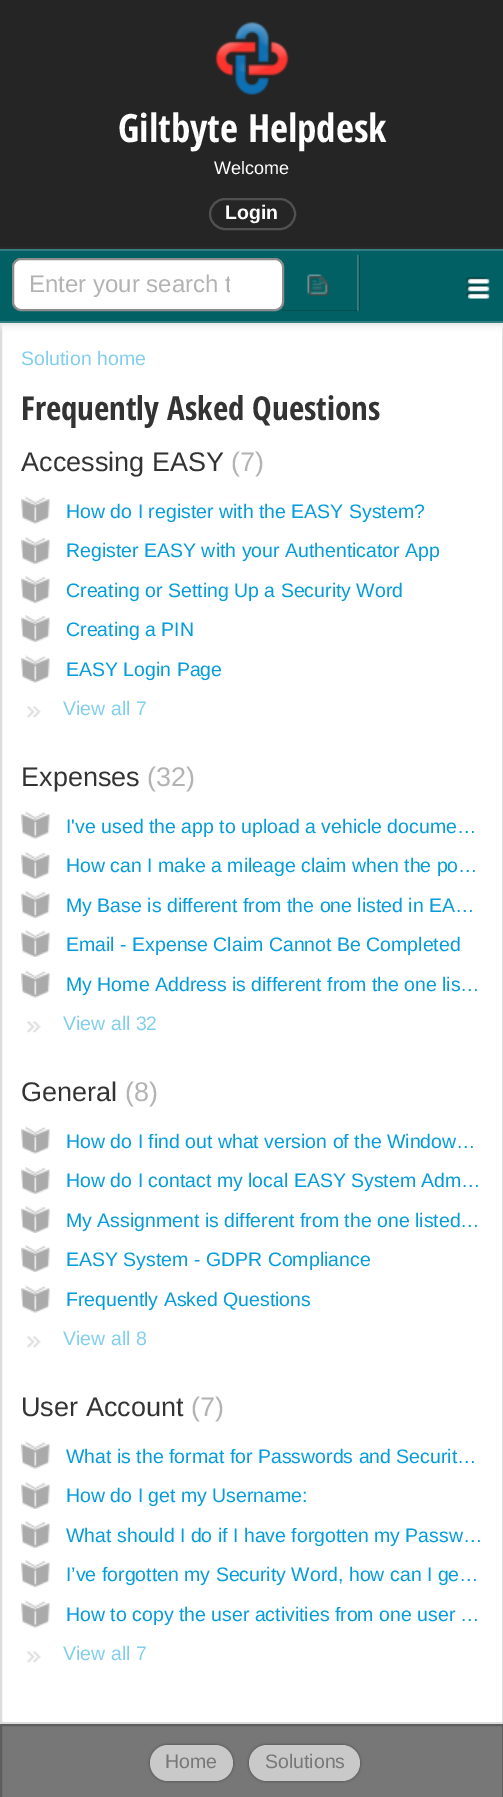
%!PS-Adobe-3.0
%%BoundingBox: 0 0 503 1797
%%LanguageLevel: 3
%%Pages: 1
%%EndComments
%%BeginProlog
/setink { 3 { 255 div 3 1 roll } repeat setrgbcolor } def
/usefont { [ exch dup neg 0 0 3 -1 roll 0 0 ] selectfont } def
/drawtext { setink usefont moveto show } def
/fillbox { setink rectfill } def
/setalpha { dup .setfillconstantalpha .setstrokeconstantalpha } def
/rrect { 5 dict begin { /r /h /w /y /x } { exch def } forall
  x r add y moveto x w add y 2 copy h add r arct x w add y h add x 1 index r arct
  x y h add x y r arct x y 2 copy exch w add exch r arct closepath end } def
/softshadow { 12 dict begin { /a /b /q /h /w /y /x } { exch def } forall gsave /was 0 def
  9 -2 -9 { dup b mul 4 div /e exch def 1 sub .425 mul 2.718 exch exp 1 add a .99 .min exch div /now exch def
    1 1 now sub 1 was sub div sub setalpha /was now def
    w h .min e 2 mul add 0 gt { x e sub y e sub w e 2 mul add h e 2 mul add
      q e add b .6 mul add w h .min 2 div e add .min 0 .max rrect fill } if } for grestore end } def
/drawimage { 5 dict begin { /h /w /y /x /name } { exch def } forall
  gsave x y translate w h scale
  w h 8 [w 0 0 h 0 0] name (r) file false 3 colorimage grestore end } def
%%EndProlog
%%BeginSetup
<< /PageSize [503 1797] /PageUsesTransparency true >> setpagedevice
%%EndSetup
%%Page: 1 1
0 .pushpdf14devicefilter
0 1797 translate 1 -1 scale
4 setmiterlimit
0 0 503 1797 37 37 37 fillbox
(assets/img1.rgb) 215 21 74 75 drawimage
(Giltbyte Helpdesk) 118 142 /OpenSansCondensed-Bold 39 255 255 255 drawtext
(Welcome) 214 174 /LiberationSans-Regular 18 255 255 255 drawtext
81 81 81 setink
2 setlinewidth
210 199 85 30 15 rrect stroke
(Login) 225 219 /LiberationSans-Bold 19.5 255 255 255 drawtext
1 324 moveto 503 324 lineto 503 1723 lineto 1 1723 lineto closepath gsave fill grestore
220 220 220 setink
stroke
238 238 238 setink
0 254 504 73 0 3 1 softshadow
0 251 503 70 0 96 99 fillbox
0 249 503 2 51 128 130 fillbox
0 321 503 2 51 128 130 fillbox
(assets/img2.rgb) 466 277 24 22 drawimage
0 77 79 setink
282 310 moveto 282 311 lineto 360 311 lineto 360 255 lineto 358 255 lineto 358 310 lineto closepath fill
255 255 255 setink
13 259 270 51 8 rrect gsave fill grestore
140 140 140 setink
stroke
gsave
29 272 201 27 rectclip
(Enter your search t) 29 292 /LiberationSans-Regular 24 179 179 179 drawtext
grestore
0.2 setalpha
357 255 2 56 255 255 255 fillbox
1 setalpha
(assets/img3.rgb) 307 274 22 22 drawimage
(Solution home) 21 365 /LiberationSans-Regular 19.5 130 206 237 drawtext
(Frequently Asked Questions) 21 420 /OpenSansCondensed-Bold 33 51 51 51 drawtext
(Accessing EASY) 21 471 /LiberationSans-Regular 27 51 51 51 drawtext
(\(7\)) 231 471 /LiberationSans-Regular 27 179 179 179 drawtext
(assets/img4.rgb) 21 496 29 28 drawimage
(How do I register with the EASY System?) 66 518 /LiberationSans-Regular 19.5 4 156 219 drawtext
(assets/img5.rgb) 21 537 29 27 drawimage
(Register EASY with your Authenticator App) 66 557 /LiberationSans-Regular 19.5 4 156 219 drawtext
(assets/img5.rgb) 21 576 29 27 drawimage
(Creating or Setting Up a Security Word) 66 597 /LiberationSans-Regular 19.5 4 156 219 drawtext
(assets/img5.rgb) 21 615 29 27 drawimage
(Creating a PIN) 66 636 /LiberationSans-Regular 19.5 4 156 219 drawtext
(assets/img4.rgb) 21 655 29 28 drawimage
(EASY Login Page) 66 676 /LiberationSans-Regular 19.5 4 156 219 drawtext
(assets/img6.rgb) 27 706 14 12 drawimage
(View all 7) 63 715 /LiberationSans-Regular 19.5 130 206 237 drawtext
(Expenses) 21 786 /LiberationSans-Regular 27 51 51 51 drawtext
(\(32\)) 147 786 /LiberationSans-Regular 27 179 179 179 drawtext
(assets/img4.rgb) 21 811 29 28 drawimage
(I've used the app to upload a vehicle docume…) 66 833 /LiberationSans-Regular 19.5 4 156 219 drawtext
(assets/img5.rgb) 21 852 29 27 drawimage
(How can I make a mileage claim when the po…) 66 872 /LiberationSans-Regular 19.5 4 156 219 drawtext
(assets/img5.rgb) 21 891 29 27 drawimage
(My Base is different from the one listed in EA…) 66 912 /LiberationSans-Regular 19.5 4 156 219 drawtext
(assets/img5.rgb) 21 930 29 27 drawimage
(Email - Expense Claim Cannot Be Completed) 66 951 /LiberationSans-Regular 19.5 4 156 219 drawtext
(assets/img4.rgb) 21 970 29 28 drawimage
(My Home Address is different from the one lis…) 66 991 /LiberationSans-Regular 19.5 4 156 219 drawtext
(assets/img6.rgb) 27 1021 14 12 drawimage
(View all 32) 63 1030 /LiberationSans-Regular 19.5 130 206 237 drawtext
(General) 21 1101 /LiberationSans-Regular 27 51 51 51 drawtext
(\(8\)) 125 1101 /LiberationSans-Regular 27 179 179 179 drawtext
(assets/img4.rgb) 21 1126 29 28 drawimage
(How do I find out what version of the Window…) 66 1148 /LiberationSans-Regular 19.5 4 156 219 drawtext
(assets/img5.rgb) 21 1167 29 27 drawimage
(How do I contact my local EASY System Adm…) 66 1187 /LiberationSans-Regular 19.5 4 156 219 drawtext
(assets/img5.rgb) 21 1206 29 27 drawimage
(My Assignment is different from the one listed…) 66 1227 /LiberationSans-Regular 19.5 4 156 219 drawtext
(assets/img5.rgb) 21 1245 29 27 drawimage
(EASY System - GDPR Compliance) 66 1266 /LiberationSans-Regular 19.5 4 156 219 drawtext
(assets/img4.rgb) 21 1285 29 28 drawimage
(Frequently Asked Questions) 66 1306 /LiberationSans-Regular 19.5 4 156 219 drawtext
(assets/img6.rgb) 27 1336 14 12 drawimage
(View all 8) 63 1345 /LiberationSans-Regular 19.5 130 206 237 drawtext
(User Account) 21 1416 /LiberationSans-Regular 27 51 51 51 drawtext
(\(7\)) 191 1416 /LiberationSans-Regular 27 179 179 179 drawtext
(assets/img4.rgb) 21 1441 29 28 drawimage
(What is the format for Passwords and Securit…) 66 1463 /LiberationSans-Regular 19.5 4 156 219 drawtext
(assets/img5.rgb) 21 1482 29 27 drawimage
(How do I get my Username:) 66 1502 /LiberationSans-Regular 19.5 4 156 219 drawtext
(assets/img5.rgb) 21 1521 29 27 drawimage
(What should I do if I have forgotten my Passw…) 66 1542 /LiberationSans-Regular 19.5 4 156 219 drawtext
(assets/img5.rgb) 21 1560 29 27 drawimage
(I’ve forgotten my Security Word, how can I ge…) 66 1581 /LiberationSans-Regular 19.5 4 156 219 drawtext
(assets/img4.rgb) 21 1600 29 28 drawimage
(How to copy the user activities from one user …) 66 1621 /LiberationSans-Regular 19.5 4 156 219 drawtext
(assets/img6.rgb) 27 1651 14 12 drawimage
(View all 7) 63 1660 /LiberationSans-Regular 19.5 130 206 237 drawtext
119 119 119 setink
1 1725 moveto 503 1725 lineto 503 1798 lineto 1 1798 lineto closepath gsave fill grestore
94 94 94 setink
stroke
73 73 73 setink
150 1745 83 36 18 1.5 1 softshadow
201 201 201 setink
150 1745 83 36 18 rrect fill
(Home) 165 1768 /LiberationSans-Regular 19.5 119 119 119 drawtext
73 73 73 setink
249 1745 111 36 18 1.5 1 softshadow
201 201 201 setink
249 1745 111 36 18 rrect fill
(Solutions) 265 1768 /LiberationSans-Regular 19.5 119 119 119 drawtext
.poppdf14devicefilter showpage
%%EOF
